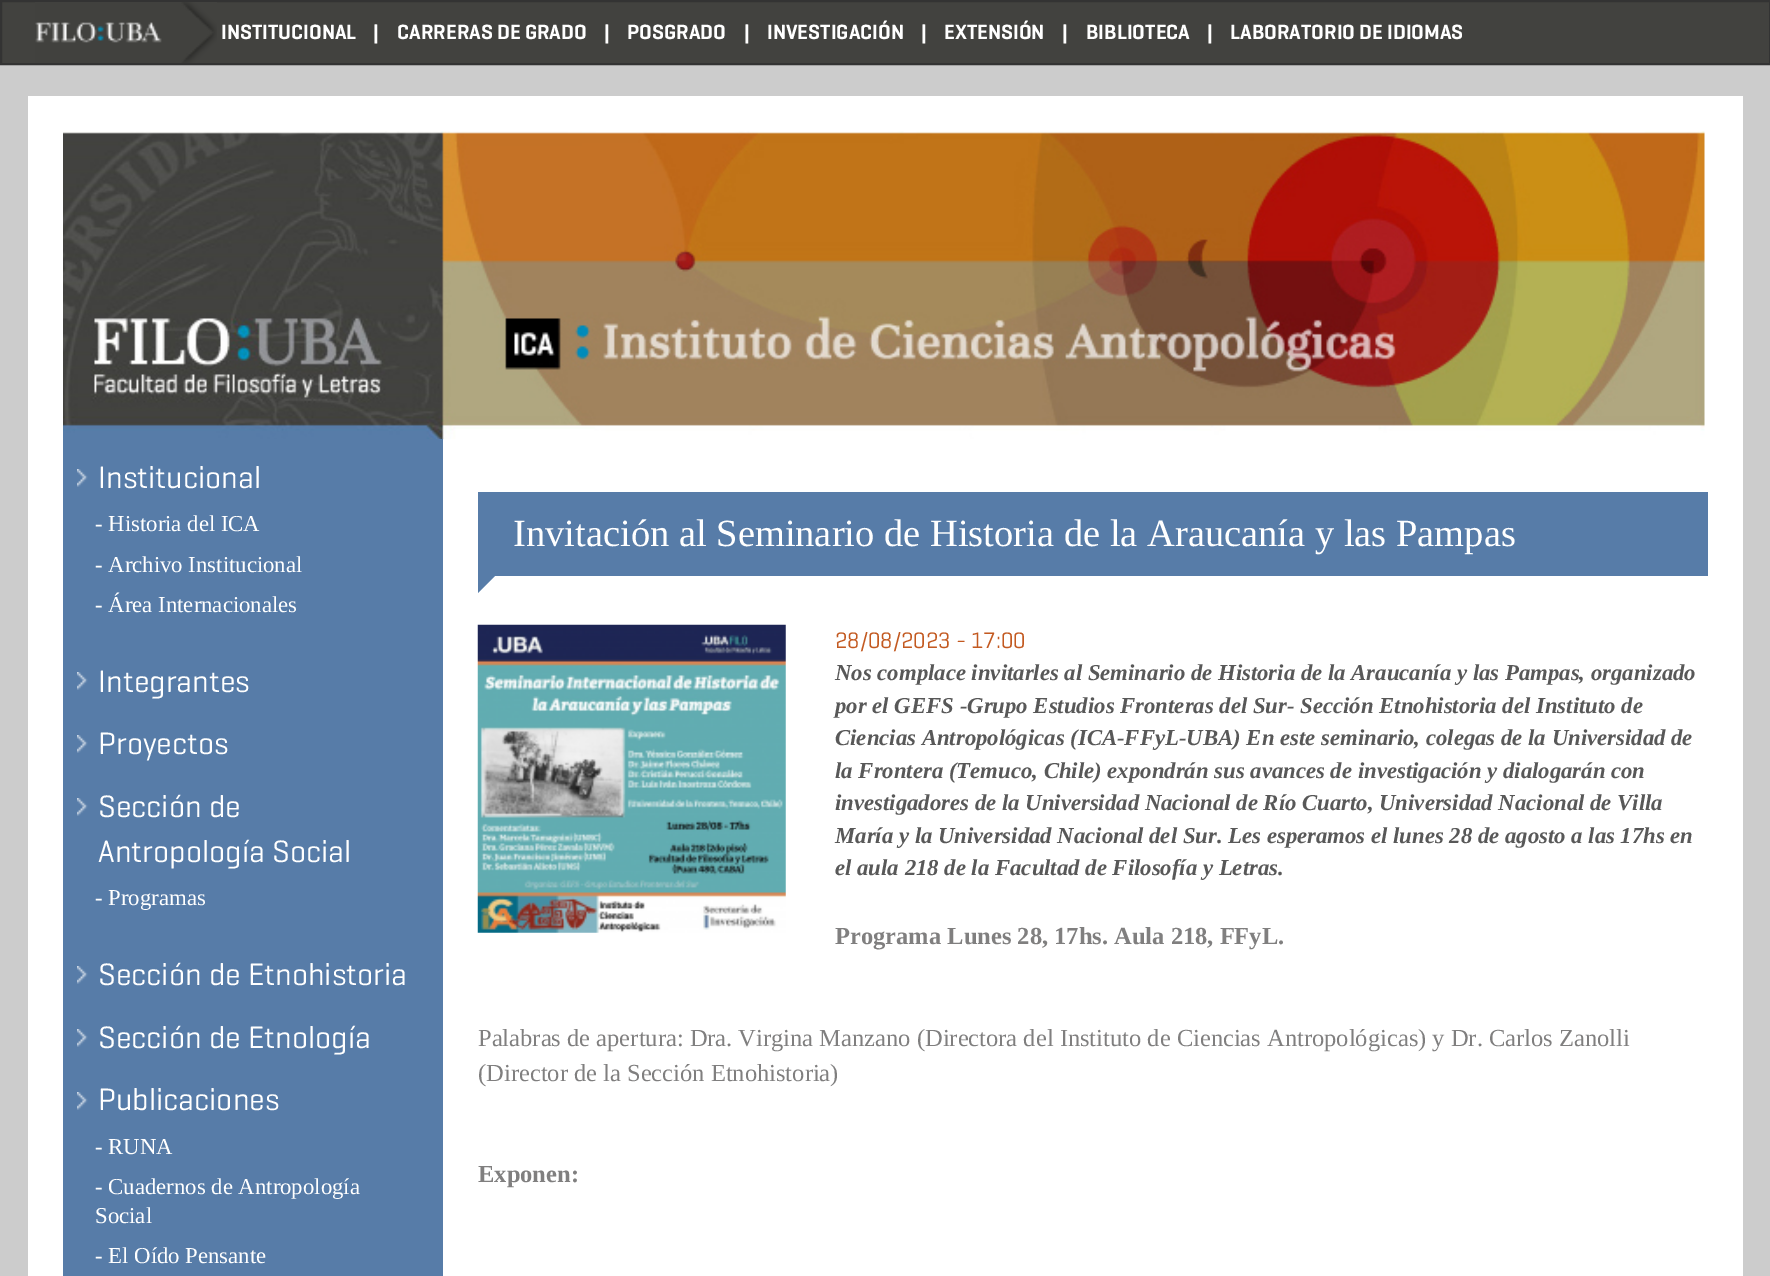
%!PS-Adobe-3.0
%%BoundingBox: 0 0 1770 1276
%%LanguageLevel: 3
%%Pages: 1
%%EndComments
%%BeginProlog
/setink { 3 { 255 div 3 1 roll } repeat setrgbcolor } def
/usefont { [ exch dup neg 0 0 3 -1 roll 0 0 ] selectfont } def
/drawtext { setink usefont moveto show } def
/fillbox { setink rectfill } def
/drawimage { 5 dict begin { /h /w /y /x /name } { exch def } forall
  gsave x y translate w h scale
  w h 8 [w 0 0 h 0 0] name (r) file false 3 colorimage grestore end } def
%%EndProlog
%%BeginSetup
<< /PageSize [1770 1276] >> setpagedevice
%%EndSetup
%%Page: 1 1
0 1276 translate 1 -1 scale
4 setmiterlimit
0 0 1770 1276 204 204 204 fillbox
66 66 63 setink
1 1 moveto 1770 1 lineto 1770 64 lineto 1 64 lineto closepath gsave fill grestore
51 51 51 setink
2 setlinewidth
stroke
(assets/img1.rgb) 35 2 182 61 drawimage
(INSTITUCIONAL) 221 39 /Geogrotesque-SemiBold 21 255 255 255 drawtext
(|) 373 39 /Geogrotesque-SemiBold 21 255 255 255 drawtext
(CARRERAS DE GRADO) 397 39 /Geogrotesque-SemiBold 21 255 255 255 drawtext
(|) 604 39 /Geogrotesque-SemiBold 21 255 255 255 drawtext
(POSGRADO) 627 39 /Geogrotesque-SemiBold 21 255 255 255 drawtext
(|) 744 39 /Geogrotesque-SemiBold 21 255 255 255 drawtext
(INVESTIGACIÓN) 767 39 /Geogrotesque-SemiBold 21 255 255 255 drawtext
(|) 921 39 /Geogrotesque-SemiBold 21 255 255 255 drawtext
(EXTENSIÓN) 944 39 /Geogrotesque-SemiBold 21 255 255 255 drawtext
(|) 1062 39 /Geogrotesque-SemiBold 21 255 255 255 drawtext
(BIBLIOTECA) 1086 39 /Geogrotesque-SemiBold 21 255 255 255 drawtext
(|) 1207 39 /Geogrotesque-SemiBold 21 255 255 255 drawtext
(LABORATORIO DE IDIOMAS) 1230 39 /Geogrotesque-SemiBold 21 255 255 255 drawtext
28 96 1715 1180 255 255 255 fillbox
(assets/img2.rgb) 63 131 1642 309 drawimage
63 439 380 837 87 124 168 fillbox
(assets/img3.rgb) 77 469 11 18 drawimage
(Institucional) 98 488 /Geogrotesque-Regular 31.5 255 255 255 drawtext
(- Historia del ICA) 95 531 /LiberationSerif-Regular 22.75 255 255 255 drawtext
(- Archivo Institucional) 95 572 /LiberationSerif-Regular 22.75 255 255 255 drawtext
(- Área Internacionales) 95 612 /LiberationSerif-Regular 22.75 255 255 255 drawtext
(assets/img3.rgb) 77 672 11 18 drawimage
(Integrantes) 98 692 /Geogrotesque-Regular 31.5 255 255 255 drawtext
(assets/img3.rgb) 77 735 11 18 drawimage
(Proyectos) 98 754 /Geogrotesque-Regular 31.5 255 255 255 drawtext
(assets/img3.rgb) 77 798 11 18 drawimage
(Sección de) 98 817 /Geogrotesque-Regular 31.5 255 255 255 drawtext
(Antropología Social) 98 862 /Geogrotesque-Regular 31.5 255 255 255 drawtext
(- Programas) 95 905 /LiberationSerif-Regular 22.75 255 255 255 drawtext
(assets/img3.rgb) 77 966 11 18 drawimage
(Sección de Etnohistoria) 98 985 /Geogrotesque-Regular 31.5 255 255 255 drawtext
(assets/img3.rgb) 77 1029 11 18 drawimage
(Sección de Etnología) 98 1048 /Geogrotesque-Regular 31.5 255 255 255 drawtext
(assets/img3.rgb) 77 1092 11 18 drawimage
(Publicaciones) 98 1110 /Geogrotesque-Regular 31.5 255 255 255 drawtext
(- RUNA) 95 1154 /LiberationSerif-Regular 22.75 255 255 255 drawtext
(- Cuadernos de Antropología) 95 1194 /LiberationSerif-Regular 22.75 255 255 255 drawtext
(Social) 95 1223 /LiberationSerif-Regular 22.75 255 255 255 drawtext
(- El Oído Pensante) 95 1263 /LiberationSerif-Regular 22.75 255 255 255 drawtext
478 492 1230 84 87 124 168 fillbox
(Invitación al Seminario de Historia de la Araucanía y las Pampas) 513 546 /LiberationSerif-Regular 38.5 255 255 255 drawtext
87 124 168 setink
478 576 moveto 495 576 lineto 478 593 lineto closepath fill
(assets/img4.rgb) 477 624 309 309 drawimage
(28/08/2023 - 17:00) 835 648 /Geogrotesque-Regular 22.75 195 89 32 drawtext
(Nos complace invitarles al Seminario de Historia de la Araucanía y las Pampas, organizado) 835 680 /LiberationSerif-BoldItalic 22.75 88 88 88 drawtext
(por el GEFS -Grupo Estudios Fronteras del Sur- Sección Etnohistoria del Instituto de) 835 713 /LiberationSerif-BoldItalic 22.75 88 88 88 drawtext
(Ciencias Antropológicas \(ICA-FFyL-UBA\) En este seminario, colegas de la Universidad de) 835 745 /LiberationSerif-BoldItalic 22.75 88 88 88 drawtext
(la Frontera \(Temuco, Chile\) expondrán sus avances de investigación y dialogarán con) 835 778 /LiberationSerif-BoldItalic 22.75 88 88 88 drawtext
(investigadores de la Universidad Nacional de Río Cuarto, Universidad Nacional de Villa) 835 810 /LiberationSerif-BoldItalic 22.75 88 88 88 drawtext
(María y la Universidad Nacional del Sur. Les esperamos el lunes 28 de agosto a las 17hs en) 835 843 /LiberationSerif-BoldItalic 22.75 88 88 88 drawtext
(el aula 218 de la Facultad de Filosofía y Letras.) 835 875 /LiberationSerif-BoldItalic 22.75 88 88 88 drawtext
(Programa Lunes 28, 17hs. Aula 218, FFyL.) 835 944 /LiberationSerif-Bold 24.5 128 127 127 drawtext
(Palabras de apertura: Dra. Virgina Manzano \(Directora del Instituto de Ciencias Antropológicas\) y Dr. Carlos Zanolli) 478 1046 /LiberationSerif-Regular 24.5 128 127 127 drawtext
(\(Director de la Sección Etnohistoria\)) 478 1081 /LiberationSerif-Regular 24.5 128 127 127 drawtext
(Exponen:) 478 1182 /LiberationSerif-Bold 24.5 128 127 127 drawtext
showpage
%%EOF
